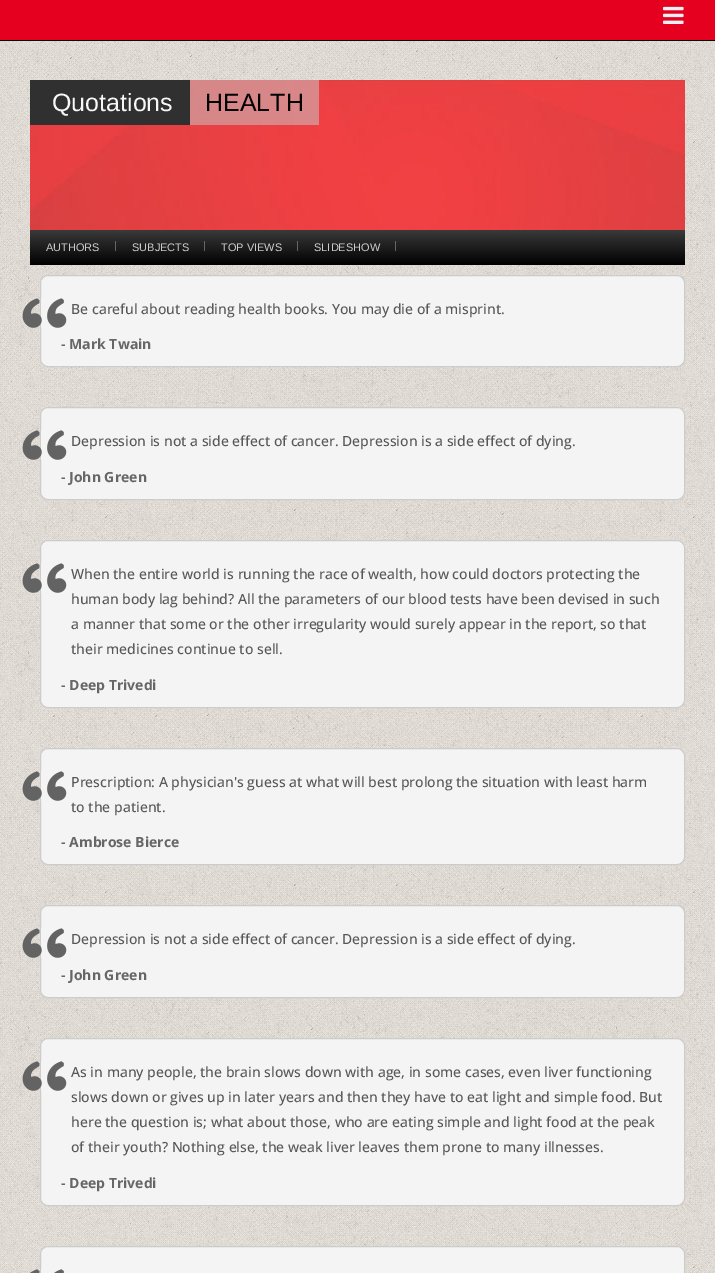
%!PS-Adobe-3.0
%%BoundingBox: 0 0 715 1273
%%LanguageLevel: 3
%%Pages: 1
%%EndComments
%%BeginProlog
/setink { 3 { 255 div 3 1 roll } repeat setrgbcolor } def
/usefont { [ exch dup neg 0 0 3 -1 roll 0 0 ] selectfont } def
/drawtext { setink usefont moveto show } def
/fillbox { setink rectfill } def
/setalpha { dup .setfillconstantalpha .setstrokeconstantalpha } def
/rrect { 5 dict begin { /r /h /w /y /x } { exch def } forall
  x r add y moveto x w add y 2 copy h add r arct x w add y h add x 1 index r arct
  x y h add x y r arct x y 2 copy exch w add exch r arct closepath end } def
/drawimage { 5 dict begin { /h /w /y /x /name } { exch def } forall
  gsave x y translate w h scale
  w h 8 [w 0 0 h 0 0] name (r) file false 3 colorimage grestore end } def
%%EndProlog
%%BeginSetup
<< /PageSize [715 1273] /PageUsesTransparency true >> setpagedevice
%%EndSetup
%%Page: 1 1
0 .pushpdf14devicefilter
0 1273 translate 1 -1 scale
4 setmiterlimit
0 0 715 1273 255 255 255 fillbox
(assets/img1.rgb) 0 41 715 1232 drawimage
0 0 715 40 228 0 30 fillbox
(assets/img2.rgb) 663 6 21 18 drawimage
0 40 715 1 0 0 0 fillbox
(assets/img3.rgb) 30 80 655 150 drawimage
30 80 160 45 48 48 48 fillbox
(Quotations) 52 111 /LiberationSans-Regular 25 247 247 247 drawtext
0.53 setalpha
190 80 129 45 198 198 198 fillbox
1 setalpha
(HEALTH) 205 111 /LiberationSans-Regular 25 0 0 0 drawtext
gsave 30 230 moveto 685 230 lineto 685 265 lineto 30 265 lineto closepath clip newpath
<< /ShadingType 2 /ColorSpace /DeviceRGB /Coords [358 230 358 265] /Extend [true true] /Function << /FunctionType 2 /Domain [0 1] /C0 [0.227 0.227 0.227] /C1 [0 0 0] /N 1 >> >> shfill grestore
(AUTHORS) 46 251 /LiberationSans-Regular 11 204 204 204 drawtext
115 241 1 10 101 101 101 fillbox
(SUBJECTS) 132 251 /LiberationSans-Regular 11 204 204 204 drawtext
204 241 1 10 101 101 101 fillbox
(TOP VIEWS) 221 251 /LiberationSans-Regular 11 204 204 204 drawtext
297 241 1 10 101 101 101 fillbox
(SLIDESHOW) 314 251 /LiberationSans-Regular 11 204 204 204 drawtext
395 241 1 10 101 101 101 fillbox
244 244 244 setink
40.5 275.5 644 91 7.5 rrect gsave fill grestore
204 204 204 setink
stroke
(assets/img4.rgb) 22 298 45 30 drawimage
(Be careful about reading health books. You may die of a misprint.) 71 314 /OpenSans-Medium 14 87 87 87 drawtext
(- Mark Twain) 61 349 /OpenSans-Bold 14 102 102 102 drawtext
244 244 244 setink
40.5 407.5 644 92 7.5 rrect gsave fill grestore
204 204 204 setink
stroke
(assets/img5.rgb) 22 430 45 30 drawimage
(Depression is not a side effect of cancer. Depression is a side effect of dying.) 71 446 /OpenSans-Medium 14 87 87 87 drawtext
(- John Green) 61 482 /OpenSans-Bold 14 102 102 102 drawtext
244 244 244 setink
40.5 540.5 644 167 7.5 rrect gsave fill grestore
204 204 204 setink
stroke
(assets/img6.rgb) 22 563 45 30 drawimage
(When the entire world is running the race of wealth, how could doctors protecting the) 71 579 /OpenSans-Medium 14 87 87 87 drawtext
(human body lag behind? All the parameters of our blood tests have been devised in such) 71 604 /OpenSans-Medium 14 87 87 87 drawtext
(a manner that some or the other irregularity would surely appear in the report, so that) 71 629 /OpenSans-Medium 14 87 87 87 drawtext
(their medicines continue to sell.) 71 654 /OpenSans-Medium 14 87 87 87 drawtext
(- Deep Trivedi) 61 690 /OpenSans-Bold 14 102 102 102 drawtext
244 244 244 setink
40.5 748.5 644 116 7.5 rrect gsave fill grestore
204 204 204 setink
stroke
(assets/img7.rgb) 22 771 45 30 drawimage
(Prescription: A physician's guess at what will best prolong the situation with least harm) 71 787 /OpenSans-Medium 14 87 87 87 drawtext
(to the patient.) 71 812 /OpenSans-Medium 14 87 87 87 drawtext
(- Ambrose Bierce) 61 847 /OpenSans-Bold 14 102 102 102 drawtext
244 244 244 setink
40.5 905.5 644 92 7.5 rrect gsave fill grestore
204 204 204 setink
stroke
(assets/img8.rgb) 22 928 45 30 drawimage
(Depression is not a side effect of cancer. Depression is a side effect of dying.) 71 944 /OpenSans-Medium 14 87 87 87 drawtext
(- John Green) 61 980 /OpenSans-Bold 14 102 102 102 drawtext
244 244 244 setink
40.5 1038.5 644 167 7.5 rrect gsave fill grestore
204 204 204 setink
stroke
(assets/img9.rgb) 22 1061 45 30 drawimage
(As in many people, the brain slows down with age, in some cases, even liver functioning) 71 1077 /OpenSans-Medium 14 87 87 87 drawtext
(slows down or gives up in later years and then they have to eat light and simple food. But) 71 1102 /OpenSans-Medium 14 87 87 87 drawtext
(here the question is; what about those, who are eating simple and light food at the peak) 71 1127 /OpenSans-Medium 14 87 87 87 drawtext
(of their youth? Nothing else, the weak liver leaves them prone to many illnesses.) 71 1152 /OpenSans-Medium 14 87 87 87 drawtext
(- Deep Trivedi) 61 1188 /OpenSans-Bold 14 102 102 102 drawtext
244 244 244 setink
40.5 1246.5 644 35 7.5 rrect gsave fill grestore
204 204 204 setink
stroke
(assets/img10.rgb) 30 1269 34 4 drawimage
.poppdf14devicefilter showpage
%%EOF
